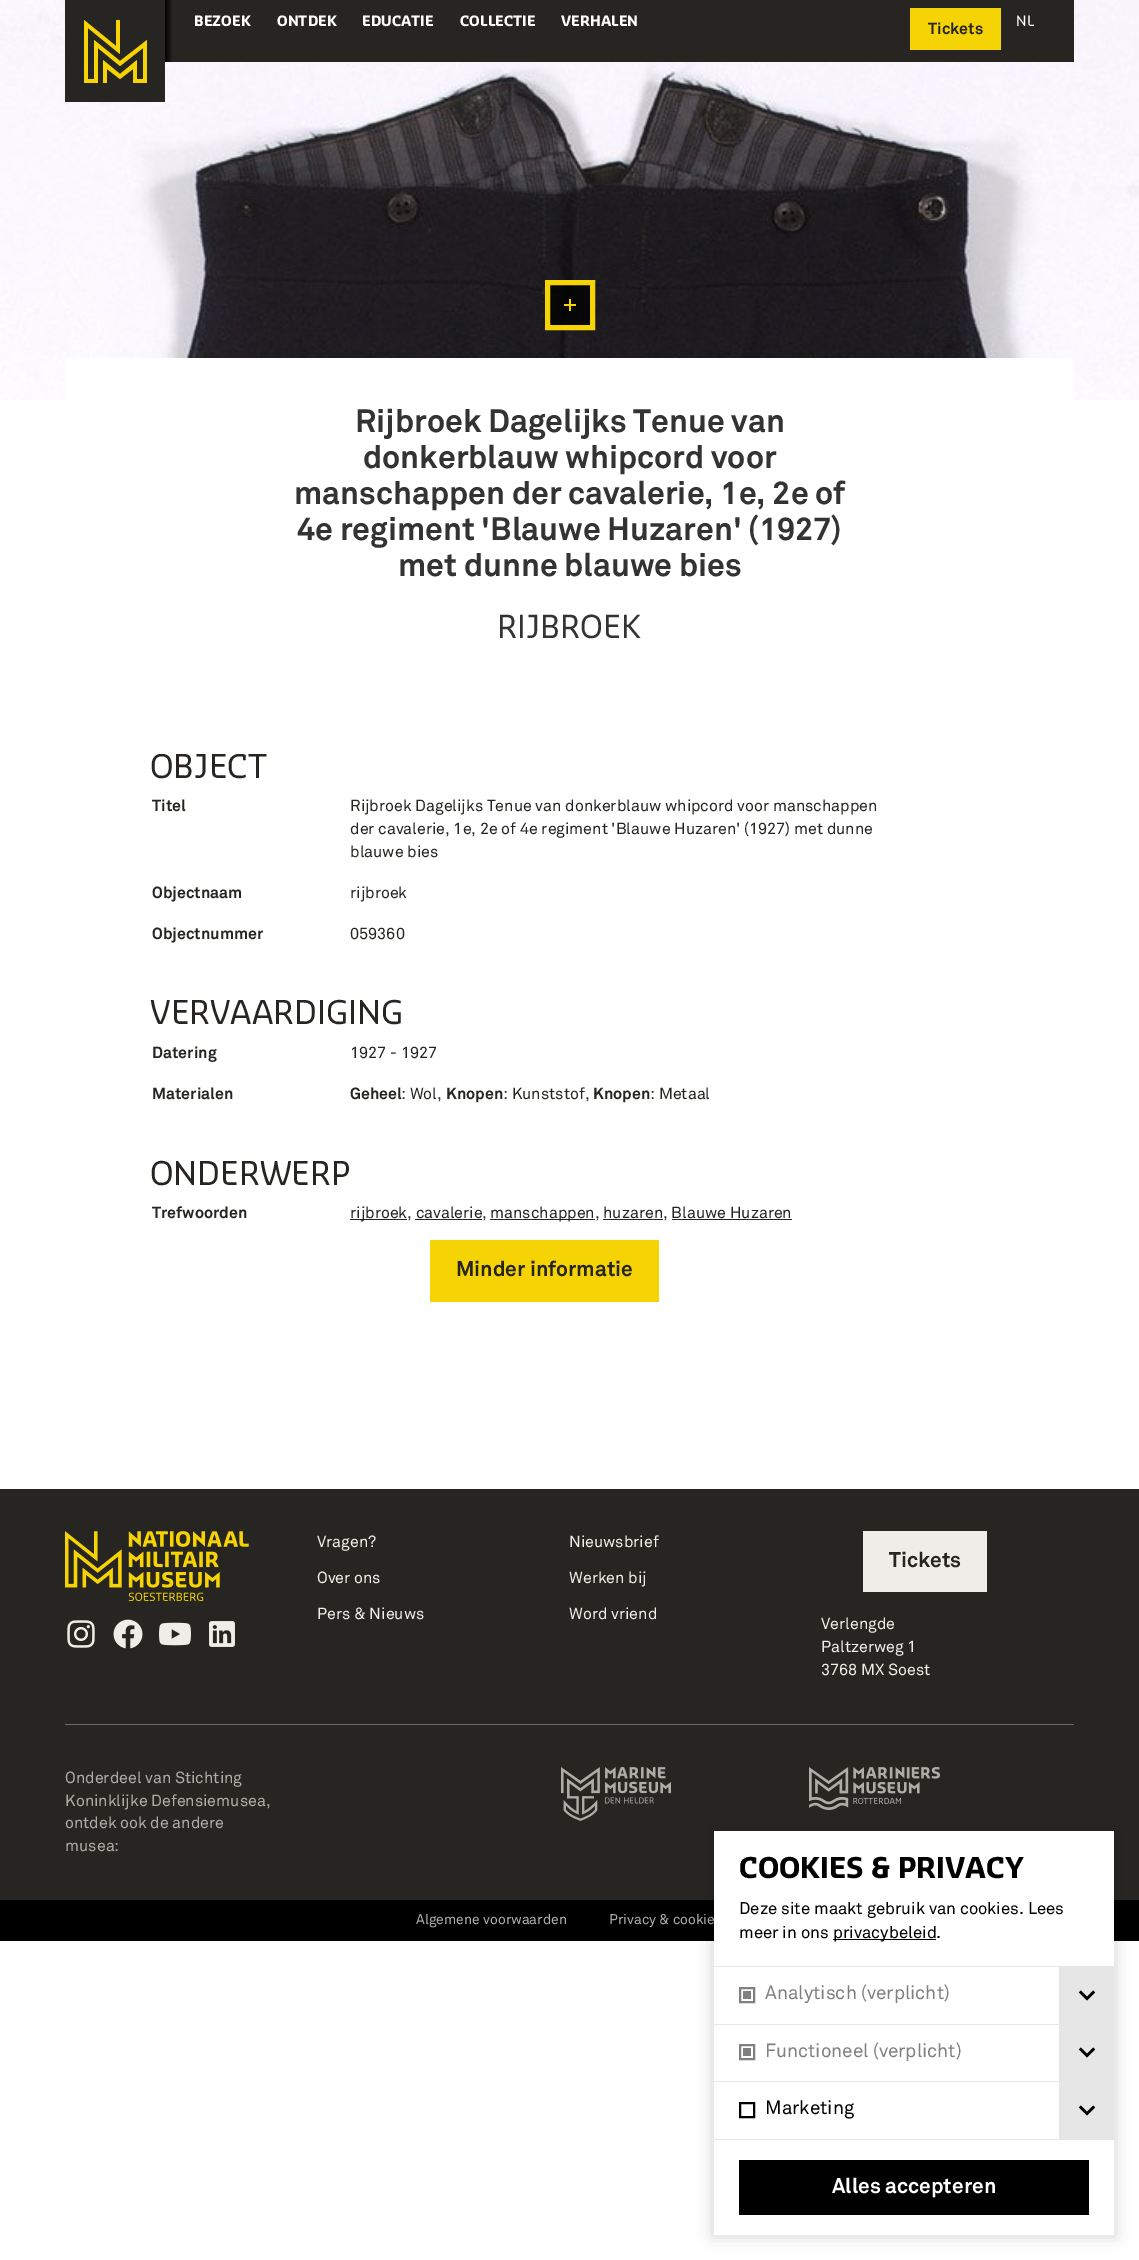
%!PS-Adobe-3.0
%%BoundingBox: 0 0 1139 2260
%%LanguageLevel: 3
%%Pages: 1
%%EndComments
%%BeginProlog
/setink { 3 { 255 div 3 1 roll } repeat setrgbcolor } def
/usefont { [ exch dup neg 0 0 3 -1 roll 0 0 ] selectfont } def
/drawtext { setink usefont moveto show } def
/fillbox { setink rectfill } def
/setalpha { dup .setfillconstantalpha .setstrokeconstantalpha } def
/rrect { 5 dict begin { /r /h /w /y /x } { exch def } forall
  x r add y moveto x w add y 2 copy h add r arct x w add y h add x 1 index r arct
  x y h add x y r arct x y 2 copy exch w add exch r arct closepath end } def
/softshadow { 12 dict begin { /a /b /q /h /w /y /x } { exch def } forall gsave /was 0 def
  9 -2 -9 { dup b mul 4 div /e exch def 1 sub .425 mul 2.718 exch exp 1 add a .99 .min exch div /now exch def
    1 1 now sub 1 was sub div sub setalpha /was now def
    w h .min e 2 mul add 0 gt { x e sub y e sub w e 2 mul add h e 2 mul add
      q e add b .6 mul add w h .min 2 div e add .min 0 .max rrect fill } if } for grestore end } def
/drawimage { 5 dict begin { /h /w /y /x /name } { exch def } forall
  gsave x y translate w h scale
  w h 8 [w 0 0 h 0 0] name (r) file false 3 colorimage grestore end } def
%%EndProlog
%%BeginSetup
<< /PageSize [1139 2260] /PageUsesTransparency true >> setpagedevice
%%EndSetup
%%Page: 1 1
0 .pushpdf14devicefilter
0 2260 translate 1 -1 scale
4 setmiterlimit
0 0 1139 2260 255 255 255 fillbox
(assets/img1.rgb) 0 0 1139 400 drawimage
65 0 100 102 38 37 33 fillbox
245 211 4 setink
84 83 moveto 98 83 lineto 98 48 lineto 120 66 lineto 143 48 lineto 143 79 lineto 137 79 lineto 137 60 lineto 120 74 lineto 103 60 lineto 103 83 lineto 107 83 lineto 107 69 lineto 120 79 lineto 133 69 lineto 133 83 lineto 147 83 lineto 147 40 lineto 120 61 lineto 94 40 lineto 94 79 lineto 88 79 lineto 88 28 lineto 120 54 lineto 120 20 lineto 116 20 lineto 116 46 lineto 84 20 lineto closepath eofill
173 0 901 62 38 37 33 fillbox
gsave 165 0 moveto 173 0 lineto 173 62 lineto 165 62 lineto closepath clip newpath
<< /ShadingType 2 /ColorSpace /DeviceRGB /Coords [165 31 173 31] /Extend [true true] /Function << /FunctionType 2 /Domain [0 1] /C0 [0 0 0] /C1 [0.149 0.145 0.129] /N 1 >> >> shfill grestore
(BEZOEK) 194 26 /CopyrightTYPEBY-Bold 14 255 255 255 drawtext
(ONTDEK) 277 26 /CopyrightTYPEBY-Bold 14 255 255 255 drawtext
(EDUCATIE) 362 26 /CopyrightTYPEBY-Bold 14 255 255 255 drawtext
(COLLECTIE) 460 26 /CopyrightTYPEBY-Bold 14 255 255 255 drawtext
(VERHALEN) 561 26 /CopyrightTYPEBY-Bold 14 255 255 255 drawtext
(NL) 1016 26 /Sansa-Regular 14 255 255 255 drawtext
910 8 91 42 245 211 4 fillbox
(Tickets) 928 34 /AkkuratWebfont-Bold 16 38 37 33 drawtext
0.75 setalpha
0 0 0 setink
547.5 282.5 moveto 592.5 282.5 lineto 592.5 327.5 lineto 547.5 327.5 lineto closepath fill
1 setalpha
245 211 4 setink
5 setlinewidth
547.5 282.5 moveto 592.5 282.5 lineto 592.5 327.5 lineto 547.5 327.5 lineto closepath stroke
(assets/img2.rgb) 564 299 12 12 drawimage
65 358 1009 42 255 255 255 fillbox
(Rijbroek Dagelijks Tenue van) 355 432 /AkkuratWebfont-Bold 32 51 51 51 drawtext
(donkerblauw whipcord voor) 363 468 /AkkuratWebfont-Bold 32 51 51 51 drawtext
(manschappen der cavalerie, 1e, 2e of) 294 504 /AkkuratWebfont-Bold 32 51 51 51 drawtext
(4e regiment 'Blauwe Huzaren' \(1927\)) 297 540 /AkkuratWebfont-Bold 32 51 51 51 drawtext
(met dunne blauwe bies) 398 576 /AkkuratWebfont-Bold 32 51 51 51 drawtext
(RIJBROEK) 497 638 /Sansa-Regular 31 51 51 51 drawtext
gsave
100 754 940 735 rectclip
(OBJECT) 150 778 /Sansa-Regular 32 38 37 33 drawtext
grestore
gsave
152 787 196 85 rectclip
(Titel) 152 811 /AkkuratWebfont-Bold 16 38 37 33 drawtext
grestore
(Rijbroek Dagelijks Tenue van donkerblauw whipcord voor manschappen) 350 811 /AkkuratWebfont-Regular 16 38 37 33 drawtext
(der cavalerie, 1e, 2e of 4e regiment 'Blauwe Huzaren' \(1927\) met dunne) 350 834 /AkkuratWebfont-Regular 16 38 37 33 drawtext
(blauwe bies) 350 857 /AkkuratWebfont-Regular 16 38 37 33 drawtext
(Objectnaam) 152 898 /AkkuratWebfont-Bold 16 38 37 33 drawtext
(rijbroek) 350 898 /AkkuratWebfont-Regular 16 38 37 33 drawtext
(Objectnummer) 152 939 /AkkuratWebfont-Bold 16 38 37 33 drawtext
(059360) 350 939 /AkkuratWebfont-Regular 16 38 37 33 drawtext
(VERVAARDIGING) 150 1024 /Sansa-Regular 32 38 37 33 drawtext
(Datering) 152 1058 /AkkuratWebfont-Bold 16 38 37 33 drawtext
(1927 - 1927) 350 1058 /AkkuratWebfont-Regular 16 38 37 33 drawtext
(Materialen) 152 1099 /AkkuratWebfont-Bold 16 38 37 33 drawtext
(Geheel) 350 1099 /AkkuratWebfont-Bold 16 38 37 33 drawtext
(: Wol,) 401 1099 /AkkuratWebfont-Regular 16 38 37 33 drawtext
(Knopen) 446 1099 /AkkuratWebfont-Bold 16 38 37 33 drawtext
(: Kunststof,) 503 1099 /AkkuratWebfont-Regular 16 38 37 33 drawtext
(Knopen) 593 1099 /AkkuratWebfont-Bold 16 38 37 33 drawtext
(: Metaal) 650 1099 /AkkuratWebfont-Regular 16 38 37 33 drawtext
(ONDERWERP) 150 1185 /Sansa-Regular 32 38 37 33 drawtext
gsave
152 1194 196 39 rectclip
(Trefwoorden) 152 1218 /AkkuratWebfont-Bold 16 38 37 33 drawtext
grestore
350 1219 57 1 38 37 33 fillbox
(rijbroek, cavalerie,) 350 1218 /AkkuratWebfont-Regular 16 38 37 33 drawtext
490 1219 105 1 38 37 33 fillbox
(manschappen, huzaren, Blauwe Huzaren) 490 1218 /AkkuratWebfont-Regular 16 38 37 33 drawtext
415 1219 67 1 38 37 33 fillbox
603 1219 60 1 38 37 33 fillbox
672 1219 120 1 38 37 33 fillbox
430 1240 229 62 245 211 4 fillbox
(Minder informatie) 456 1276 /AkkuratWebfont-Bold 21 38 37 33 drawtext
0 1489 1139 411 38 37 33 fillbox
(assets/img3.rgb) 65 1531 184 70 drawimage
(assets/img4.rgb) 67 1620 28 28 drawimage
(assets/img5.rgb) 113 1619 30 30 drawimage
(assets/img6.rgb) 159 1622 32 24 drawimage
(assets/img7.rgb) 209 1621 26 26 drawimage
(Vragen?) 317 1547 /AkkuratWebfont-Regular 16 238 237 231 drawtext
(Over ons) 317 1583 /AkkuratWebfont-Regular 16 238 237 231 drawtext
(Pers & Nieuws) 317 1619 /AkkuratWebfont-Regular 16 238 237 231 drawtext
(Nieuwsbrief) 569 1547 /AkkuratWebfont-Regular 16 238 237 231 drawtext
(Werken bij) 569 1583 /AkkuratWebfont-Regular 16 238 237 231 drawtext
(Word vriend) 569 1619 /AkkuratWebfont-Regular 16 238 237 231 drawtext
863 1531 124 61 238 237 231 fillbox
(Tickets) 889 1567 /AkkuratWebfont-Bold 21 38 37 33 drawtext
(Verlengde) 821 1629 /AkkuratWebfont-Regular 16 238 237 231 drawtext
(Paltzerweg 1) 821 1652 /AkkuratWebfont-Regular 16 238 237 231 drawtext
(3768 MX Soest) 821 1675 /AkkuratWebfont-Regular 16 238 237 231 drawtext
65 1724 1009 1 106 105 101 fillbox
(Onderdeel van Stichting) 65 1783 /AkkuratWebfont-Regular 16 173 173 168 drawtext
(Koninklijke Defensiemusea,) 65 1806 /AkkuratWebfont-Regular 16 173 173 168 drawtext
(ontdek ook de andere) 65 1828 /AkkuratWebfont-Regular 16 173 173 168 drawtext
(musea:) 65 1851 /AkkuratWebfont-Regular 16 173 173 168 drawtext
(assets/img8.rgb) 561 1767 110 54 drawimage
(assets/img9.rgb) 809 1767 131 43 drawimage
0 1900 1139 41 0 0 0 fillbox
(Algemene voorwaarden) 416 1924 /AkkuratWebfont-Regular 14 173 173 168 drawtext
(Privacy & cookie) 609 1924 /AkkuratWebfont-Regular 14 173 173 168 drawtext
0 0 0 setink
712 1829 404 408 0 7.5 0.15 softshadow
714 1831 400 404 255 255 255 fillbox
(COOKIES & PRIVACY) 739 1878 /CopyrightTYPEBY-Bold 28 0 0 0 drawtext
(Deze site maakt gebruik van cookies. Lees) 739 1914 /AkkuratWebfont-Regular 16.75 0 0 0 drawtext
(meer in ons) 739 1938 /AkkuratWebfont-Regular 16.75 0 0 0 drawtext
833 1939 103 1 0 0 0 fillbox
(privacybeleid.) 833 1938 /AkkuratWebfont-Regular 16.75 0 0 0 drawtext
714 2139 400 1 230 230 230 fillbox
714 1966 400 1 230 230 230 fillbox
128 128 128 setink
2 setlinewidth
740 1988 14 14 rectstroke
743 1991 8 8 128 128 128 fillbox
(Analytisch \(verplicht\)) 765 1999 /AkkuratWebfont-Regular 18.9 128 128 128 drawtext
1059 1967 55 57 230 230 230 fillbox
(assets/img10.rgb) 1078 1990 18 11 drawimage
714 2024 400 1 230 230 230 fillbox
128 128 128 setink
740 2045 14 14 rectstroke
743 2048 8 8 128 128 128 fillbox
(Functioneel \(verplicht\)) 765 2057 /AkkuratWebfont-Regular 18.9 128 128 128 drawtext
1059 2025 55 56 230 230 230 fillbox
(assets/img10.rgb) 1078 2047 18 11 drawimage
714 2081 400 1 230 230 230 fillbox
0 0 0 setink
740 2103 14 14 rectstroke
(Marketing) 765 2114 /AkkuratWebfont-Regular 18.9 0 0 0 drawtext
1059 2082 55 57 230 230 230 fillbox
(assets/img10.rgb) 1078 2105 18 11 drawimage
739 2160 350 55 0 0 0 fillbox
(Alles accepteren) 832 2193 /AkkuratWebfont-Bold 21 255 255 255 drawtext
.poppdf14devicefilter showpage
%%EOF
